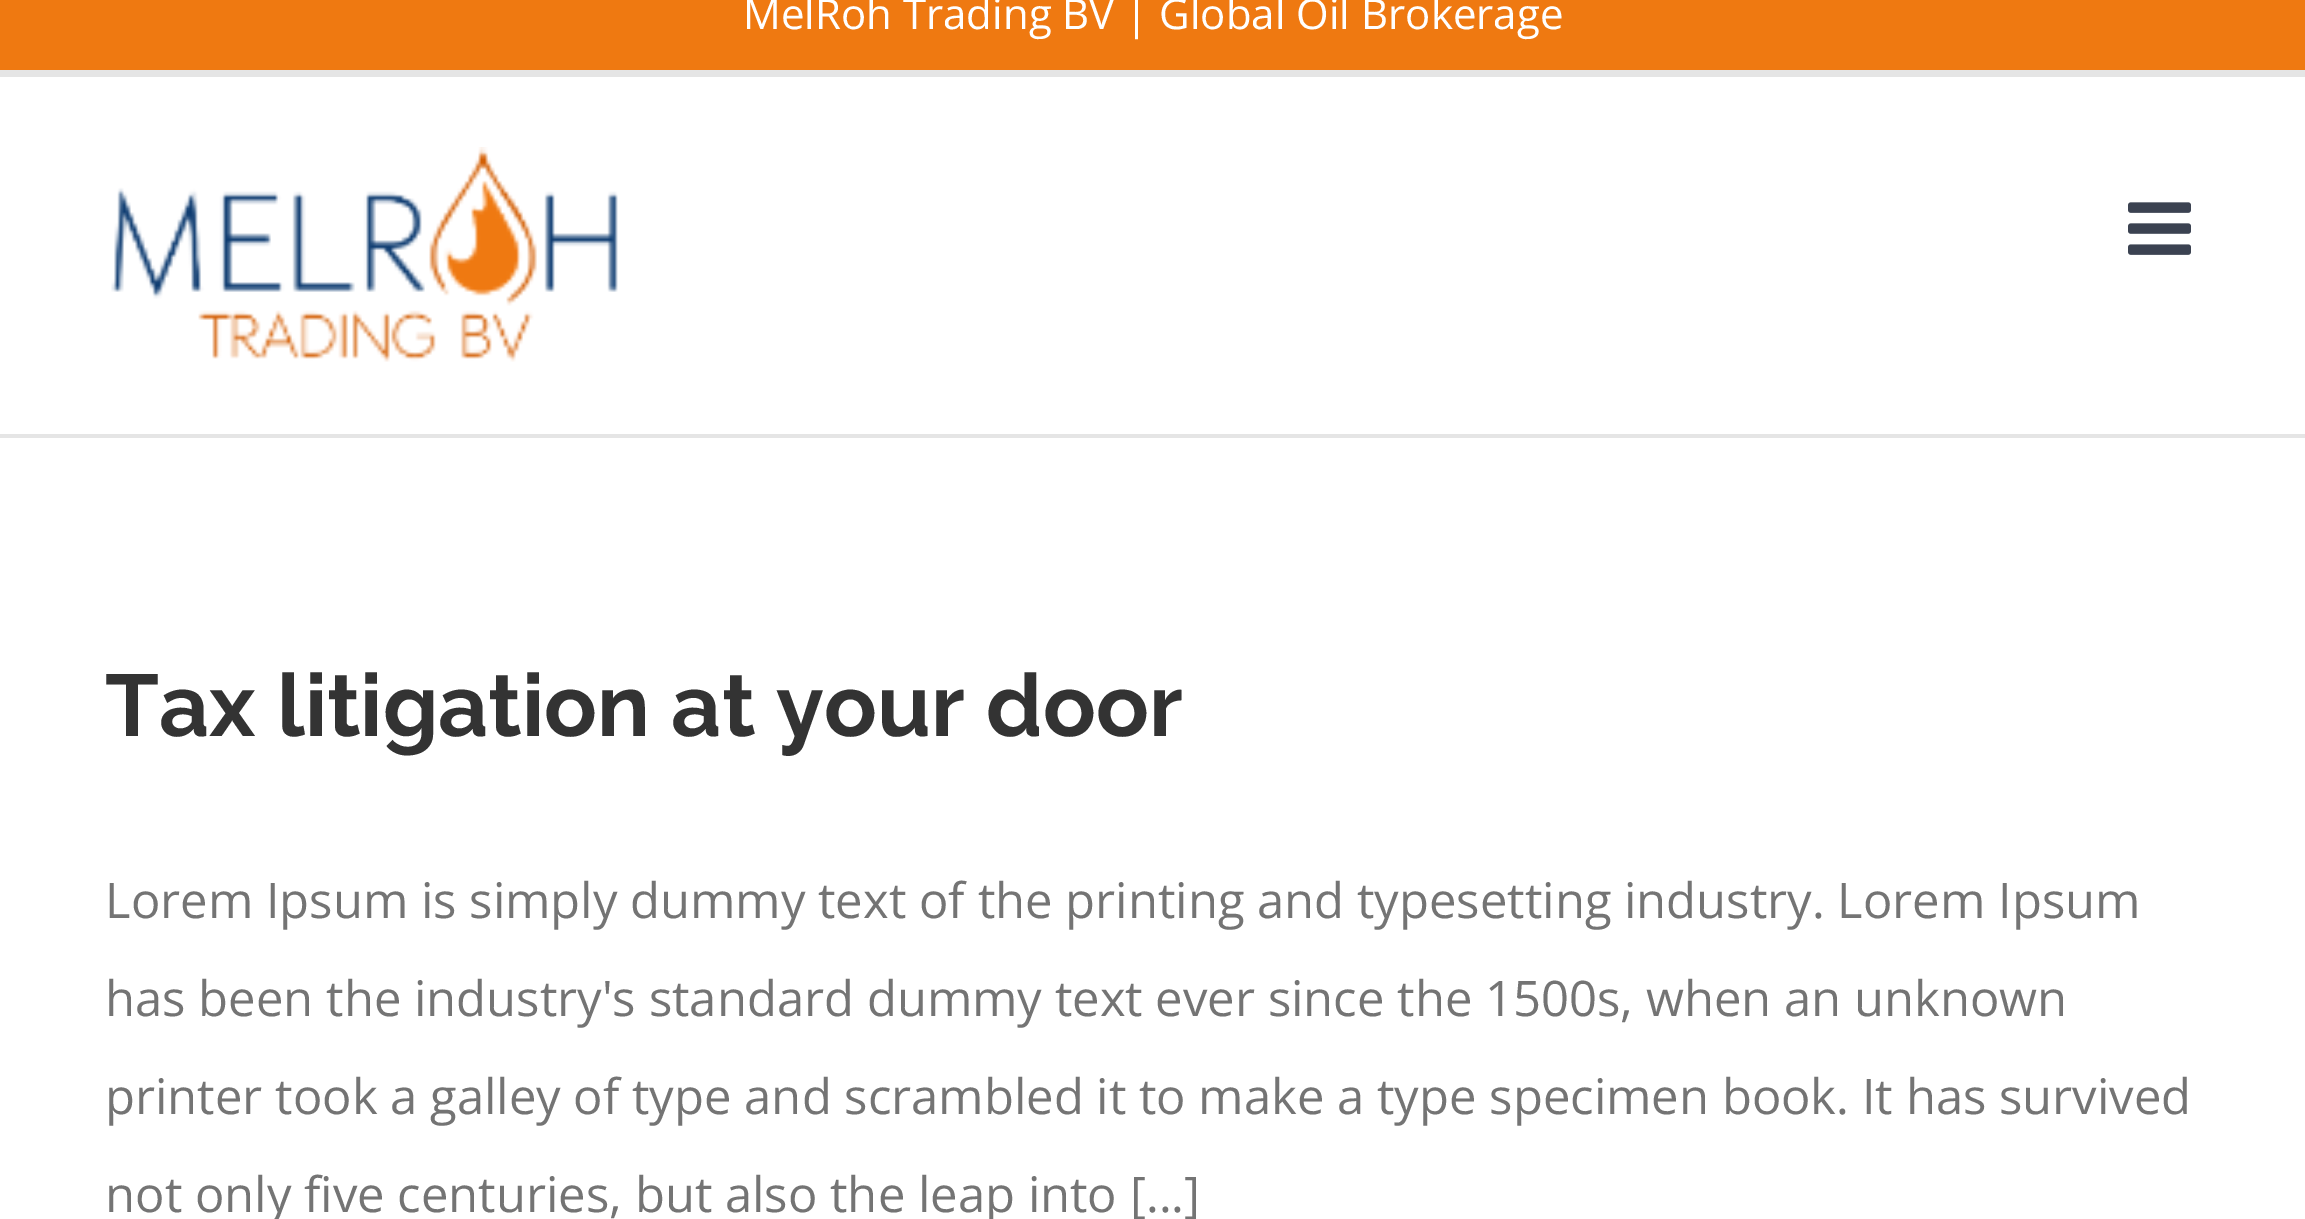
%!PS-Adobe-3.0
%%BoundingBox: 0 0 2305 1219
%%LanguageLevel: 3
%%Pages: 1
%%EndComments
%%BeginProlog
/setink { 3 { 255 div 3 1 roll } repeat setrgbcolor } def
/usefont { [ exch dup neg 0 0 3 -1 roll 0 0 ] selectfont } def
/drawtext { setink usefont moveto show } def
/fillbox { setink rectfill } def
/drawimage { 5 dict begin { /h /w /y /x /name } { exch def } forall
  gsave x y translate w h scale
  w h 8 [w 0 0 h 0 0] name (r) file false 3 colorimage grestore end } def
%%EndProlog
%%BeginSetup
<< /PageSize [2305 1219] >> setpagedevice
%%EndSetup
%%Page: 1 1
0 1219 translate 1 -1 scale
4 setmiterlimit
0 0 2305 1219 255 255 255 fillbox
0 0 2305 70 239 121 17 fillbox
0 70 2305 7 229 229 229 fillbox
(MelRoh Trading BV | Global Oil Brokerage) 743 29 /OpenSans-Regular 42 255 255 255 drawtext
0 434 2305 4 229 229 229 fillbox
(assets/img1.rgb) 111 147 507 215 drawimage
(assets/img2.rgb) 2128 202 63 53 drawimage
(Tax litigation at your door) 105 736 /Raleway-Thin 87.5 51 51 51 drawtext
(Lorem Ipsum is simply dummy text of the printing and typesetting industry. Lorem Ipsum) 105 918 /OpenSans-Regular 49 116 116 116 drawtext
(has been the industry's standard dummy text ever since the 1500s, when an unknown) 105 1016 /OpenSans-Regular 49 116 116 116 drawtext
(printer took a galley of type and scrambled it to make a type specimen book. It has survived) 105 1114 /OpenSans-Regular 49 116 116 116 drawtext
(not only five centuries, but also the leap into [...]) 105 1212 /OpenSans-Regular 49 116 116 116 drawtext
showpage
%%EOF
